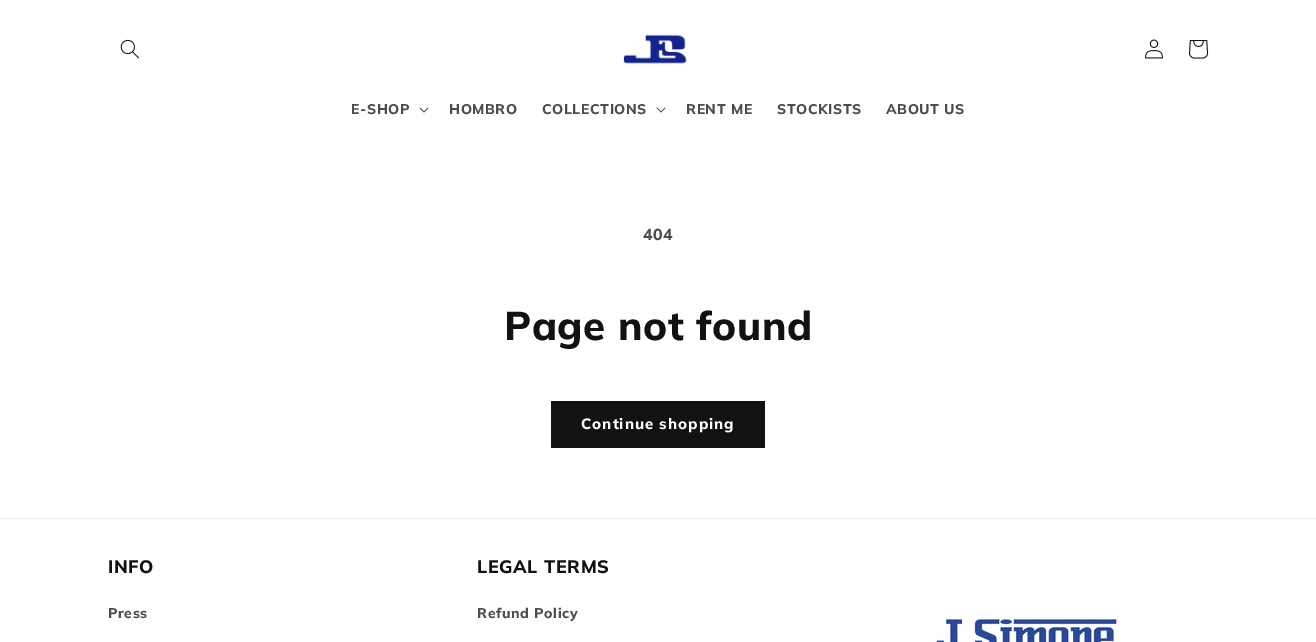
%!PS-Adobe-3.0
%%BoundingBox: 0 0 1316 642
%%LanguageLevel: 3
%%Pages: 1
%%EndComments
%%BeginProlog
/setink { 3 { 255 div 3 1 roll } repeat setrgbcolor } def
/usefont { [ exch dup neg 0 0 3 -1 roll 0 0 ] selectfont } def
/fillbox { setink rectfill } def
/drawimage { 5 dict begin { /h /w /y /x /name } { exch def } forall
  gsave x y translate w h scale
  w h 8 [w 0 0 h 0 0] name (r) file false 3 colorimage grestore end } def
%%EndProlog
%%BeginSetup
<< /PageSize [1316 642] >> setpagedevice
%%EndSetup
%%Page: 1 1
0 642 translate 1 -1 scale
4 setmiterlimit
0 0 1316 642 255 255 255 fillbox
(assets/img1.rgb) 120 39 19 20 drawimage
(assets/img2.rgb) 623 34 64 30 drawimage
(assets/img3.rgb) 1145 39 18 20 drawimage
(assets/img4.rgb) 1189 40 20 19 drawimage
/Muli-ExtraBold 14 usefont
77 77 77 setink
351 114 moveto 0.6 0 (E-SHOP) ashow
(assets/img5.rgb) 419 107 10 6 drawimage
449 114 moveto 0.6 0 (HOMBRO) ashow
542 114 moveto 0.6 0 (COLLECTIONS) ashow
(assets/img5.rgb) 656 107 10 6 drawimage
686 114 moveto 0.6 0 (RENT ME) ashow
777 114 moveto 0.6 0 (STOCKISTS) ashow
886 114 moveto 0.6 0 (ABOUT US) ashow
/Muli-ExtraBold 16 usefont
643 240 moveto 0.6 0 (404) ashow
/Muli-ExtraBold 40 usefont
18 18 18 setink
504 340 moveto 0.6 0 (Page not found) ashow
551 401 214 47 18 18 18 fillbox
/Muli-ExtraBold 15 usefont
255 255 255 setink
581 429 moveto 1 0 (Continue shopping) ashow
0 518 1316 1 236 236 236 fillbox
/Muli-ExtraBold 18 usefont
18 18 18 setink
108 573 moveto 0.6 0 (INFO) ashow
/Muli-ExtraBold 14 usefont
77 77 77 setink
108 618 moveto 0.6 0 (Press) ashow
/Muli-ExtraBold 18 usefont
18 18 18 setink
477 573 moveto 0.6 0 (LEGAL TERMS) ashow
/Muli-ExtraBold 14 usefont
77 77 77 setink
477 618 moveto 0.6 0 (Refund Policy) ashow
(assets/img6.rgb) 935 618 187 24 drawimage
showpage
%%EOF
